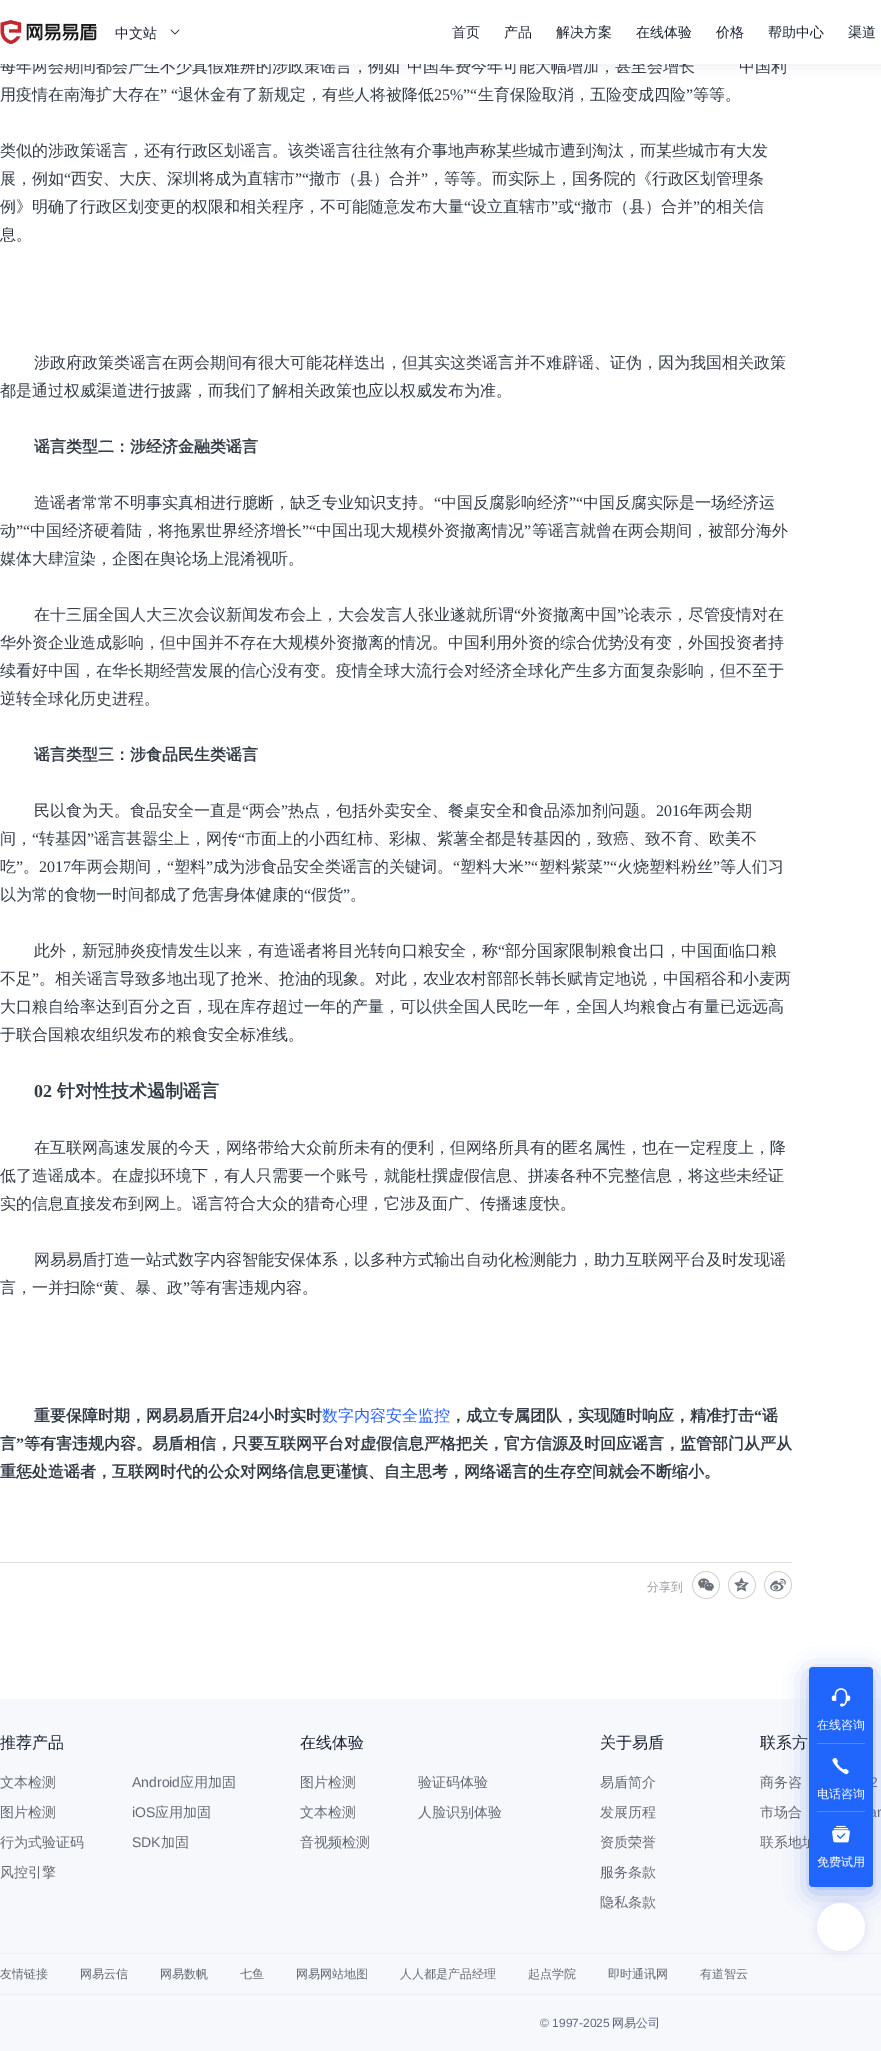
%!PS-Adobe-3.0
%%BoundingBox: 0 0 881 2051
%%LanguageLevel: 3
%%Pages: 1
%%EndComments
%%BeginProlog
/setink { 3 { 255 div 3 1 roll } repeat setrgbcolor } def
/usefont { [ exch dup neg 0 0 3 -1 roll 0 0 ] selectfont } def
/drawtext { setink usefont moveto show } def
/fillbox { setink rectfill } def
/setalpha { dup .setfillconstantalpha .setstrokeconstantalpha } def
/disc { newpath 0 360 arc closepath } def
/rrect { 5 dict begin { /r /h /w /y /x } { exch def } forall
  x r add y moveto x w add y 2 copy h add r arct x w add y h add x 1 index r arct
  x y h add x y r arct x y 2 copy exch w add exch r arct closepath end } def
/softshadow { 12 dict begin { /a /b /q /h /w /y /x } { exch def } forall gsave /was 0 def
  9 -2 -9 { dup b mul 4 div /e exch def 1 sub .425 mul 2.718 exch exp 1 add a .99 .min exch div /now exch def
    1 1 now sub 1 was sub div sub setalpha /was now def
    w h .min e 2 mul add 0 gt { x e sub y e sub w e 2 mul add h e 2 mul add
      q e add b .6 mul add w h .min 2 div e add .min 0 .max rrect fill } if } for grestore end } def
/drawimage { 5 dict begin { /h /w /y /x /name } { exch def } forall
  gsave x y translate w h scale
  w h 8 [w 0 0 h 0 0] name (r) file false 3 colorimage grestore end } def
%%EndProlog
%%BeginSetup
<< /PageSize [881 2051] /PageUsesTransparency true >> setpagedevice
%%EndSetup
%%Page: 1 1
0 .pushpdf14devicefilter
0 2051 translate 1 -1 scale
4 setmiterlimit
0 0 881 2051 255 255 255 fillbox
156 168 185 setink
0 4 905 64 0 8 0.16 softshadow
(每年两会期间都会产生不少真假难辨的涉政策谣言，例如) 0 72 /WenQuanYiZenHei-Medium 16 51 59 71 drawtext
(中国军费今年可能大幅增加，甚至会增长) 407 72 /WenQuanYiZenHei-Medium 16 51 59 71 drawtext
(中国利) 739 72 /WenQuanYiZenHei-Medium 16 51 59 71 drawtext
0 0 881 64 255 255 255 fillbox
(assets/img1.rgb) 0 20 97 25 drawimage
(中文站) 115 38 /WenQuanYiZenHei-Medium 14 26 34 51 drawtext
(assets/img2.rgb) 170 29 10 6 drawimage
(首页) 452 37 /WenQuanYiZenHei-Medium 14 26 34 51 drawtext
(产品) 504 37 /WenQuanYiZenHei-Medium 14 26 34 51 drawtext
(解决方案) 556 37 /WenQuanYiZenHei-Medium 14 26 34 51 drawtext
(在线体验) 636 37 /WenQuanYiZenHei-Medium 14 26 34 51 drawtext
(价格) 716 37 /WenQuanYiZenHei-Medium 14 26 34 51 drawtext
(帮助中心) 768 37 /WenQuanYiZenHei-Medium 14 26 34 51 drawtext
(渠道) 848 37 /WenQuanYiZenHei-Medium 14 26 34 51 drawtext
0 1562 792 1 220 222 224 fillbox
(用疫情在南海扩大存在) 0 100 /WenQuanYiZenHei-Medium 16 51 59 71 drawtext
(” “) 160 100 /LiberationSerif-Regular 16 51 59 71 drawtext
(退休金有了新规定，有些人将被降低) 178 100 /WenQuanYiZenHei-Medium 16 51 59 71 drawtext
(25%”“) 434 100 /LiberationSerif-Regular 16 51 59 71 drawtext
(生育保险取消，五险变成四险) 478 100 /WenQuanYiZenHei-Medium 16 51 59 71 drawtext
(”) 686 100 /LiberationSerif-Regular 16 51 59 71 drawtext
(等等。) 693 100 /WenQuanYiZenHei-Medium 16 51 59 71 drawtext
(类似的涉政策谣言，还有行政区划谣言。该类谣言往往煞有介事地声称某些城市遭到淘汰，而某些城市有大发) 0 156 /WenQuanYiZenHei-Medium 16 51 59 71 drawtext
(展，例如) 0 184 /WenQuanYiZenHei-Medium 16 51 59 71 drawtext
(“) 64 184 /LiberationSerif-Regular 16 51 59 71 drawtext
(西安、大庆、深圳将成为直辖市) 71 184 /WenQuanYiZenHei-Medium 16 51 59 71 drawtext
(”“) 295 184 /LiberationSerif-Regular 16 51 59 71 drawtext
(撤市（县）合并) 309 184 /WenQuanYiZenHei-Medium 16 51 59 71 drawtext
(”) 421 184 /LiberationSerif-Regular 16 51 59 71 drawtext
(，等等。而实际上，国务院的《行政区划管理条) 428 184 /WenQuanYiZenHei-Medium 16 51 59 71 drawtext
(例》明确了行政区划变更的权限和相关程序，不可能随意发布大量) 0 212 /WenQuanYiZenHei-Medium 16 51 59 71 drawtext
(“) 464 212 /LiberationSerif-Regular 16 51 59 71 drawtext
(设立直辖市) 471 212 /WenQuanYiZenHei-Medium 16 51 59 71 drawtext
(”) 551 212 /LiberationSerif-Regular 16 51 59 71 drawtext
(或) 558 212 /WenQuanYiZenHei-Medium 16 51 59 71 drawtext
(“) 574 212 /LiberationSerif-Regular 16 51 59 71 drawtext
(撤市（县）合并) 581 212 /WenQuanYiZenHei-Medium 16 51 59 71 drawtext
(”) 693 212 /LiberationSerif-Regular 16 51 59 71 drawtext
(的相关信) 700 212 /WenQuanYiZenHei-Medium 16 51 59 71 drawtext
(息。) 0 240 /WenQuanYiZenHei-Medium 16 51 59 71 drawtext
(涉政府政策类谣言在两会期间有很大可能花样迭出，但其实这类谣言并不难辟谣、证伪，因为我国相关政策) 34 368 /WenQuanYiZenHei-Medium 16 51 59 71 drawtext
(都是通过权威渠道进行披露，而我们了解相关政策也应以权威发布为准。) 0 396 /WenQuanYiZenHei-Medium 16 51 59 71 drawtext
(谣言类型二：涉经济金融类谣言) 34 452 /WenQuanYiZenHei-Bold 16 51 59 71 drawtext
(造谣者常常不明事实真相进行臆断，缺乏专业知识支持。) 34 508 /WenQuanYiZenHei-Medium 16 51 59 71 drawtext
(“) 434 508 /LiberationSerif-Regular 16 51 59 71 drawtext
(中国反腐影响经济) 441 508 /WenQuanYiZenHei-Medium 16 51 59 71 drawtext
(”“) 569 508 /LiberationSerif-Regular 16 51 59 71 drawtext
(中国反腐实际是一场经济运) 583 508 /WenQuanYiZenHei-Medium 16 51 59 71 drawtext
(动) 0 536 /WenQuanYiZenHei-Medium 16 51 59 71 drawtext
(”“) 16 536 /LiberationSerif-Regular 16 51 59 71 drawtext
(中国经济硬着陆，将拖累世界经济增长) 30 536 /WenQuanYiZenHei-Medium 16 51 59 71 drawtext
(”“) 302 536 /LiberationSerif-Regular 16 51 59 71 drawtext
(中国出现大规模外资撤离情况) 316 536 /WenQuanYiZenHei-Medium 16 51 59 71 drawtext
(”) 524 536 /LiberationSerif-Regular 16 51 59 71 drawtext
(等谣言就曾在两会期间，被部分海外) 532 536 /WenQuanYiZenHei-Medium 16 51 59 71 drawtext
(媒体大肆渲染，企图在舆论场上混淆视听。) 0 564 /WenQuanYiZenHei-Medium 16 51 59 71 drawtext
(在十三届全国人大三次会议新闻发布会上，大会发言人张业遂就所谓) 34 620 /WenQuanYiZenHei-Medium 16 51 59 71 drawtext
(“) 514 620 /LiberationSerif-Regular 16 51 59 71 drawtext
(外资撤离中国) 521 620 /WenQuanYiZenHei-Medium 16 51 59 71 drawtext
(”) 617 620 /LiberationSerif-Regular 16 51 59 71 drawtext
(论表示，尽管疫情对在) 624 620 /WenQuanYiZenHei-Medium 16 51 59 71 drawtext
(华外资企业造成影响，但中国并不存在大规模外资撤离的情况。中国利用外资的综合优势没有变，外国投资者持) 0 648 /WenQuanYiZenHei-Medium 16 51 59 71 drawtext
(续看好中国，在华长期经营发展的信心没有变。疫情全球大流行会对经济全球化产生多方面复杂影响，但不至于) 0 676 /WenQuanYiZenHei-Medium 16 51 59 71 drawtext
(逆转全球化历史进程。) 0 704 /WenQuanYiZenHei-Medium 16 51 59 71 drawtext
(谣言类型三：涉食品民生类谣言) 34 760 /WenQuanYiZenHei-Bold 16 51 59 71 drawtext
(民以食为天。食品安全一直是) 34 816 /WenQuanYiZenHei-Medium 16 51 59 71 drawtext
(“) 242 816 /LiberationSerif-Regular 16 51 59 71 drawtext
(两会) 249 816 /WenQuanYiZenHei-Medium 16 51 59 71 drawtext
(”) 281 816 /LiberationSerif-Regular 16 51 59 71 drawtext
(热点，包括外卖安全、餐桌安全和食品添加剂问题。) 288 816 /WenQuanYiZenHei-Medium 16 51 59 71 drawtext
(2016) 656 816 /LiberationSerif-Regular 16 51 59 71 drawtext
(年两会期) 688 816 /WenQuanYiZenHei-Medium 16 51 59 71 drawtext
(间，) 0 844 /WenQuanYiZenHei-Medium 16 51 59 71 drawtext
(“) 32 844 /LiberationSerif-Regular 16 51 59 71 drawtext
(转基因) 39 844 /WenQuanYiZenHei-Medium 16 51 59 71 drawtext
(”) 87 844 /LiberationSerif-Regular 16 51 59 71 drawtext
(谣言甚嚣尘上，网传) 94 844 /WenQuanYiZenHei-Medium 16 51 59 71 drawtext
(“) 238 844 /LiberationSerif-Regular 16 51 59 71 drawtext
(市面上的小西红柿、彩椒、紫薯全都是转基因的，致癌、致不育、欧美不) 245 844 /WenQuanYiZenHei-Medium 16 51 59 71 drawtext
(吃) 0 872 /WenQuanYiZenHei-Medium 16 51 59 71 drawtext
(”) 16 872 /LiberationSerif-Regular 16 51 59 71 drawtext
(2017) 39 872 /LiberationSerif-Regular 16 51 59 71 drawtext
(年两会期间，) 71 872 /WenQuanYiZenHei-Medium 16 51 59 71 drawtext
(“) 167 872 /LiberationSerif-Regular 16 51 59 71 drawtext
(塑料) 174 872 /WenQuanYiZenHei-Medium 16 51 59 71 drawtext
(”) 206 872 /LiberationSerif-Regular 16 51 59 71 drawtext
(成为涉食品安全类谣言的关键词。) 213 872 /WenQuanYiZenHei-Medium 16 51 59 71 drawtext
(“) 453 872 /LiberationSerif-Regular 16 51 59 71 drawtext
(塑料大米) 460 872 /WenQuanYiZenHei-Medium 16 51 59 71 drawtext
(”“) 524 872 /LiberationSerif-Regular 16 51 59 71 drawtext
(塑料紫菜) 539 872 /WenQuanYiZenHei-Medium 16 51 59 71 drawtext
(”“) 603 872 /LiberationSerif-Regular 16 51 59 71 drawtext
(火烧塑料粉丝) 617 872 /WenQuanYiZenHei-Medium 16 51 59 71 drawtext
(”) 713 872 /LiberationSerif-Regular 16 51 59 71 drawtext
(等人们习) 720 872 /WenQuanYiZenHei-Medium 16 51 59 71 drawtext
(。) 23 872 /WenQuanYiZenHei-Medium 16 51 59 71 drawtext
(以为常的食物一时间都成了危害身体健康的) 0 900 /WenQuanYiZenHei-Medium 16 51 59 71 drawtext
(“) 304 900 /LiberationSerif-Regular 16 51 59 71 drawtext
(假货) 311 900 /WenQuanYiZenHei-Medium 16 51 59 71 drawtext
(”) 343 900 /LiberationSerif-Regular 16 51 59 71 drawtext
(。) 350 900 /WenQuanYiZenHei-Medium 16 51 59 71 drawtext
(此外，新冠肺炎疫情发生以来，有造谣者将目光转向口粮安全，称) 34 956 /WenQuanYiZenHei-Medium 16 51 59 71 drawtext
(“) 498 956 /LiberationSerif-Regular 16 51 59 71 drawtext
(部分国家限制粮食出口，中国面临口粮) 505 956 /WenQuanYiZenHei-Medium 16 51 59 71 drawtext
(不足) 0 984 /WenQuanYiZenHei-Medium 16 51 59 71 drawtext
(”) 32 984 /LiberationSerif-Regular 16 51 59 71 drawtext
(。相关谣言导致多地出现了抢米、抢油的现象。对此，农业农村部部长韩长赋肯定地说，中国稻谷和小麦两) 39 984 /WenQuanYiZenHei-Medium 16 51 59 71 drawtext
(大口粮自给率达到百分之百，现在库存超过一年的产量，可以供全国人民吃一年，全国人均粮食占有量已远远高) 0 1012 /WenQuanYiZenHei-Medium 16 51 59 71 drawtext
(于联合国粮农组织发布的粮食安全标准线。) 0 1040 /WenQuanYiZenHei-Medium 16 51 59 71 drawtext
(02) 34 1097 /LiberationSerif-Bold 18 51 59 71 drawtext
(针对性技术遏制谣言) 57 1097 /WenQuanYiZenHei-Bold 18 51 59 71 drawtext
(在互联网高速发展的今天，网络带给大众前所未有的便利，但网络所具有的匿名属性，也在一定程度上，降) 34 1153 /WenQuanYiZenHei-Medium 16 51 59 71 drawtext
(低了造谣成本。在虚拟环境下，有人只需要一个账号，就能杜撰虚假信息、拼凑各种不完整信息，将这些未经证) 0 1181 /WenQuanYiZenHei-Medium 16 51 59 71 drawtext
(实的信息直接发布到网上。谣言符合大众的猎奇心理，它涉及面广、传播速度快。) 0 1209 /WenQuanYiZenHei-Medium 16 51 59 71 drawtext
(网易易盾打造一站式数字内容智能安保体系，以多种方式输出自动化检测能力，助力互联网平台及时发现谣) 34 1265 /WenQuanYiZenHei-Medium 16 51 59 71 drawtext
(言，一并扫除) 0 1293 /WenQuanYiZenHei-Medium 16 51 59 71 drawtext
(“) 96 1293 /LiberationSerif-Regular 16 51 59 71 drawtext
(黄、暴、政) 103 1293 /WenQuanYiZenHei-Medium 16 51 59 71 drawtext
(”) 183 1293 /LiberationSerif-Regular 16 51 59 71 drawtext
(等有害违规内容。) 190 1293 /WenQuanYiZenHei-Medium 16 51 59 71 drawtext
(重要保障时期，网易易盾开启) 34 1421 /WenQuanYiZenHei-Bold 16 51 59 71 drawtext
(24) 242 1421 /LiberationSerif-Bold 16 51 59 71 drawtext
(小时实时) 258 1421 /WenQuanYiZenHei-Bold 16 51 59 71 drawtext
(数字内容安全监控) 322 1421 /WenQuanYiZenHei-Medium 16 42 98 255 drawtext
(，成立专属团队，实现随时响应，精准打击) 450 1421 /WenQuanYiZenHei-Bold 16 51 59 71 drawtext
(“) 754 1421 /LiberationSerif-Bold 16 51 59 71 drawtext
(谣) 762 1421 /WenQuanYiZenHei-Bold 16 51 59 71 drawtext
(言) 0 1449 /WenQuanYiZenHei-Bold 16 51 59 71 drawtext
(”) 16 1449 /LiberationSerif-Bold 16 51 59 71 drawtext
(等有害违规内容。易盾相信，只要互联网平台对虚假信息严格把关，官方信源及时回应谣言，监管部门从严从) 24 1449 /WenQuanYiZenHei-Bold 16 51 59 71 drawtext
(重惩处造谣者，互联网时代的公众对网络信息更谨慎、自主思考，网络谣言的生存空间就会不断缩小。) 0 1477 /WenQuanYiZenHei-Bold 16 51 59 71 drawtext
(分享到) 647 1591 /WenQuanYiZenHei-Medium 12 150 155 163 drawtext
(assets/img3.rgb) 692 1571 28 28 drawimage
(assets/img4.rgb) 728 1571 28 28 drawimage
(assets/img5.rgb) 764 1571 28 28 drawimage
0 1699 881 352 247 248 251 fillbox
38 89 223 setink
809 1673 64 220 4 12 0.4 softshadow
(2) 870 1787 /LiberationSans-Regular 14 99 105 116 drawtext
(ar) 869 1817 /LiberationSans-Regular 14 99 105 116 drawtext
(联系地址) 760 1847 /WenQuanYiZenHei-Medium 14 99 105 116 drawtext
32 101 252 setink
809 1667 64 220 4 rrect fill
(assets/img6.rgb) 831 1688 20 19 drawimage
(在线咨询) 817 1729 /WenQuanYiZenHei-Medium 12 255 255 255 drawtext
817 1743 48 1 81 136 254 fillbox
(assets/img7.rgb) 832 1758 17 17 drawimage
(电话咨询) 817 1798 /WenQuanYiZenHei-Medium 12 255 255 255 drawtext
817 1811 48 1 81 136 254 fillbox
(assets/img8.rgb) 832 1825 18 18 drawimage
(免费试用) 817 1866 /WenQuanYiZenHei-Medium 12 255 255 255 drawtext
0 1953 881 1 235 238 244 fillbox
41 92 204 setink
817 1903 48 48 24 5 0.15 softshadow
255 255 255 setink
841 1927 24 disc fill
(推荐产品) 0 1748 /WenQuanYiZenHei-Medium 16 26 34 51 drawtext
(文本检测) 0 1787 /WenQuanYiZenHei-Medium 14 99 105 116 drawtext
(图片检测) 0 1817 /WenQuanYiZenHei-Medium 14 99 105 116 drawtext
(行为式验证码) 0 1847 /WenQuanYiZenHei-Medium 14 99 105 116 drawtext
(风控引擎) 0 1877 /WenQuanYiZenHei-Medium 14 99 105 116 drawtext
(Android) 132 1787 /LiberationSans-Regular 14 99 105 116 drawtext
(应用加固) 180 1787 /WenQuanYiZenHei-Medium 14 99 105 116 drawtext
(iOS) 132 1817 /LiberationSans-Regular 14 99 105 116 drawtext
(应用加固) 155 1817 /WenQuanYiZenHei-Medium 14 99 105 116 drawtext
(SDK) 132 1847 /LiberationSans-Regular 14 99 105 116 drawtext
(加固) 161 1847 /WenQuanYiZenHei-Medium 14 99 105 116 drawtext
(在线体验) 300 1748 /WenQuanYiZenHei-Medium 16 26 34 51 drawtext
(图片检测) 300 1787 /WenQuanYiZenHei-Medium 14 99 105 116 drawtext
(文本检测) 300 1817 /WenQuanYiZenHei-Medium 14 99 105 116 drawtext
(音视频检测) 300 1847 /WenQuanYiZenHei-Medium 14 99 105 116 drawtext
(验证码体验) 418 1787 /WenQuanYiZenHei-Medium 14 99 105 116 drawtext
(人脸识别体验) 418 1817 /WenQuanYiZenHei-Medium 14 99 105 116 drawtext
(关于易盾) 600 1748 /WenQuanYiZenHei-Medium 16 26 34 51 drawtext
(易盾简介) 600 1787 /WenQuanYiZenHei-Medium 14 99 105 116 drawtext
(发展历程) 600 1817 /WenQuanYiZenHei-Medium 14 99 105 116 drawtext
(资质荣誉) 600 1847 /WenQuanYiZenHei-Medium 14 99 105 116 drawtext
(服务条款) 600 1877 /WenQuanYiZenHei-Medium 14 99 105 116 drawtext
(隐私条款) 600 1907 /WenQuanYiZenHei-Medium 14 99 105 116 drawtext
(联系方) 760 1748 /WenQuanYiZenHei-Medium 16 26 34 51 drawtext
(商务咨) 760 1787 /WenQuanYiZenHei-Medium 14 99 105 116 drawtext
(市场合) 760 1817 /WenQuanYiZenHei-Medium 14 99 105 116 drawtext
0 1994 881 1 235 238 244 fillbox
(友情链接) 0 1978 /WenQuanYiZenHei-Medium 12 99 105 116 drawtext
(网易云信) 80 1978 /WenQuanYiZenHei-Medium 12 99 105 116 drawtext
(网易数帆) 160 1978 /WenQuanYiZenHei-Medium 12 99 105 116 drawtext
(七鱼) 240 1978 /WenQuanYiZenHei-Medium 12 99 105 116 drawtext
(网易网站地图) 296 1978 /WenQuanYiZenHei-Medium 12 99 105 116 drawtext
(人人都是产品经理) 400 1978 /WenQuanYiZenHei-Medium 12 99 105 116 drawtext
(起点学院) 528 1978 /WenQuanYiZenHei-Medium 12 99 105 116 drawtext
(即时通讯网) 608 1978 /WenQuanYiZenHei-Medium 12 99 105 116 drawtext
(有道智云) 700 1978 /WenQuanYiZenHei-Medium 12 99 105 116 drawtext
(© 1997-2025) 540 2027 /LiberationSans-Regular 12 96 105 128 drawtext
(网易公司) 612 2027 /WenQuanYiZenHei-Medium 12 96 105 128 drawtext
.poppdf14devicefilter showpage
%%EOF
